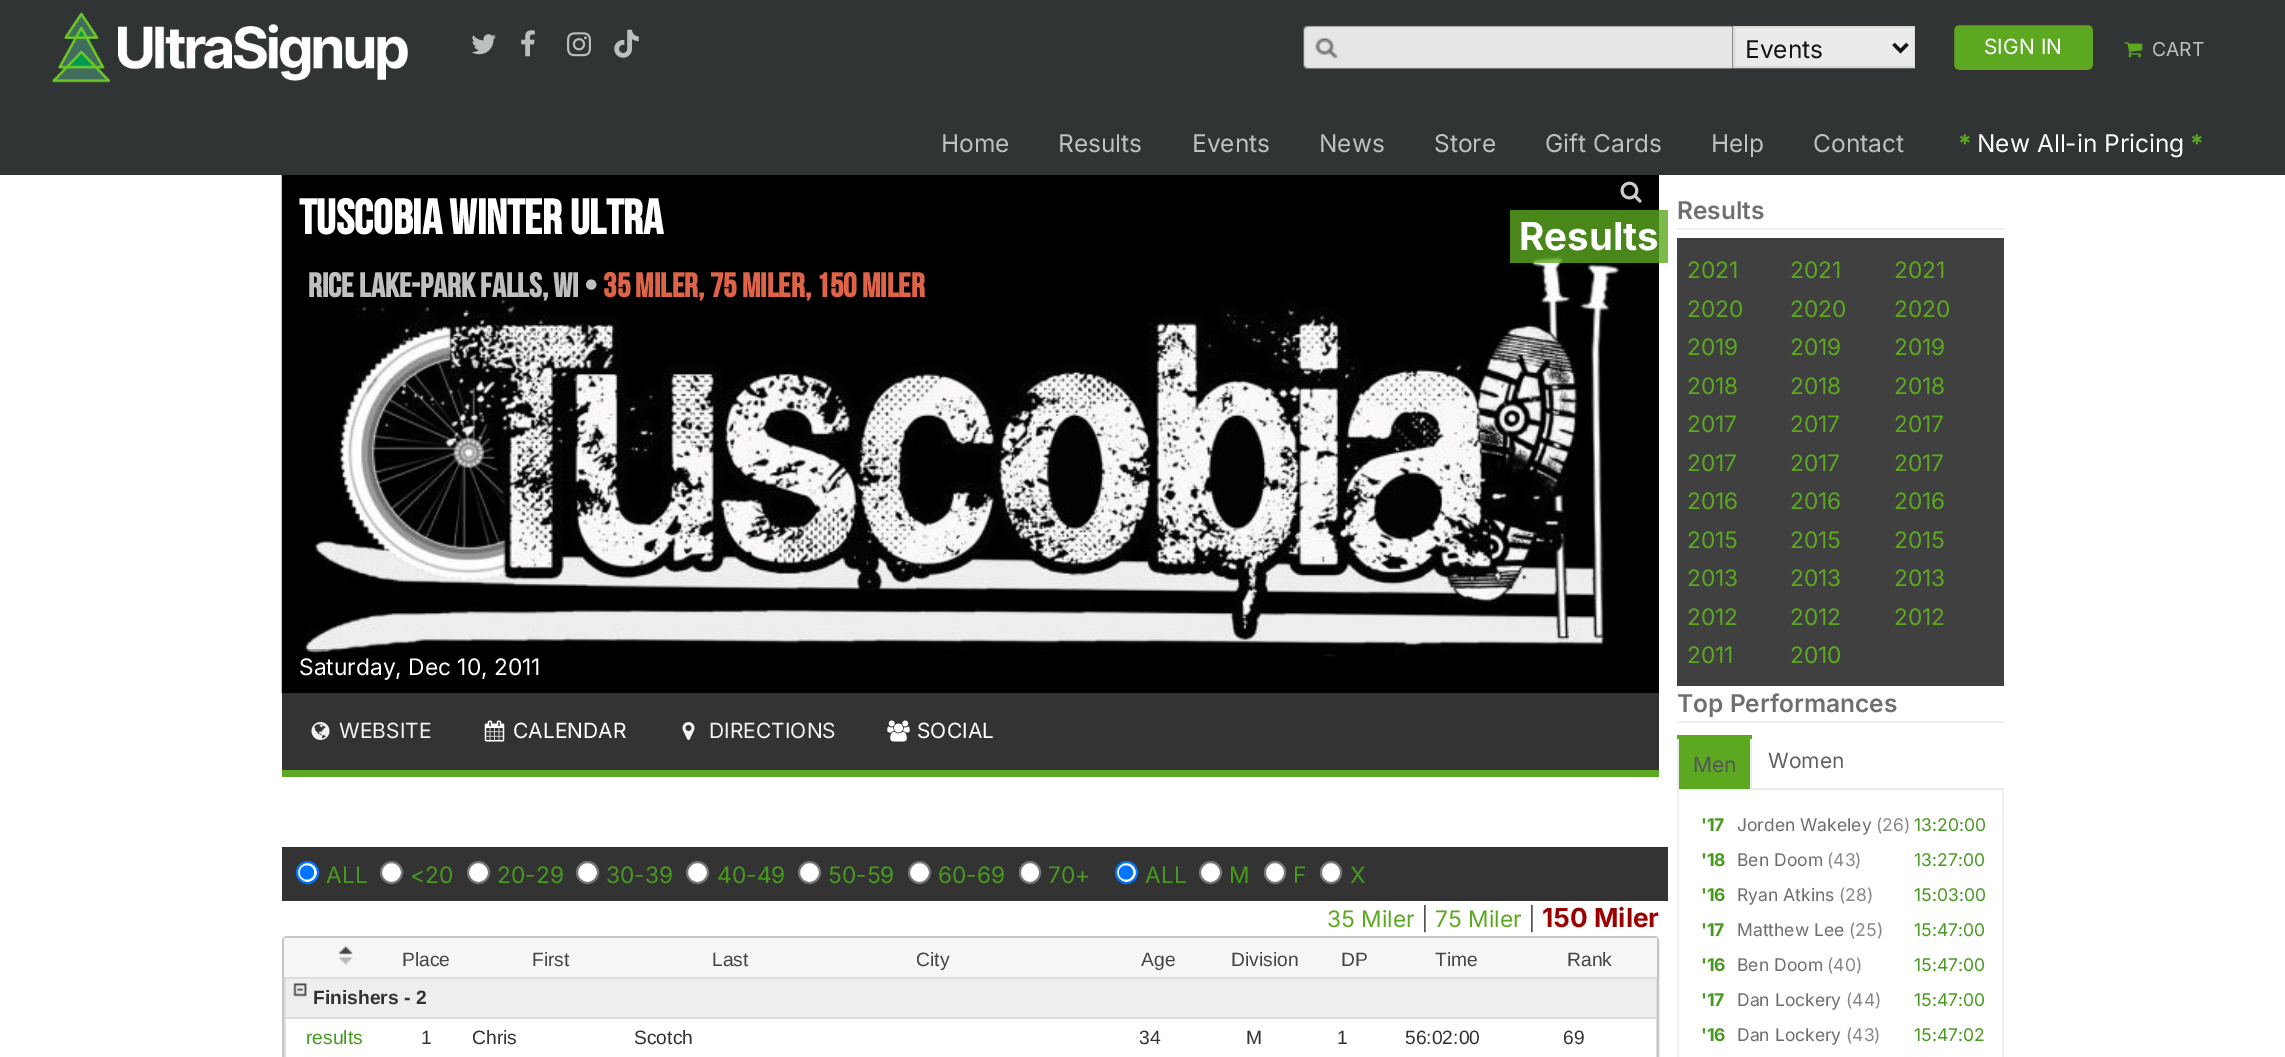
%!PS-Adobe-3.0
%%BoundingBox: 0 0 2285 1057
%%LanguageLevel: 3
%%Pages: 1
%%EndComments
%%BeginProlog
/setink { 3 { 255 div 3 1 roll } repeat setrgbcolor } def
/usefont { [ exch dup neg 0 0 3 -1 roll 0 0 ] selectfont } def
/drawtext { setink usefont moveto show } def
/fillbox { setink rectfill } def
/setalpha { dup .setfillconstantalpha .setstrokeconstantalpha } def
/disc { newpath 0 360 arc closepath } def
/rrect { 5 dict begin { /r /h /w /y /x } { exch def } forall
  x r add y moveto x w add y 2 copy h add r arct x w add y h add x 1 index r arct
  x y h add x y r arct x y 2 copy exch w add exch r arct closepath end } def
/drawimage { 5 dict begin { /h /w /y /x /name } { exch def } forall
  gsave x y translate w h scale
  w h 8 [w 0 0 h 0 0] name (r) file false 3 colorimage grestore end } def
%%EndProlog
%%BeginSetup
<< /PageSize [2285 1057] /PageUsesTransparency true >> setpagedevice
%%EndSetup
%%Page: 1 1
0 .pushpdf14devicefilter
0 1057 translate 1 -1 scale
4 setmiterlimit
0 0 2285 1057 255 255 255 fillbox
0 0 2285 175 48 52 52 fillbox
(assets/img1.rgb) 52 12 356 71 drawimage
(assets/img2.rgb) 471 34 25 21 drawimage
(assets/img3.rgb) 521 30 14 27 drawimage
(assets/img4.rgb) 567 32 24 25 drawimage
(assets/img5.rgb) 614 29 25 29 drawimage
(assets/img6.rgb) 1303 25 430 44 drawimage
1735 28 179 38 234 235 235 fillbox
gsave
1715 23 200 47 rectclip
216 216 215 setink
2 setlinewidth
1734 27 181 40 rectstroke
grestore
19 22 22 setink
3.5 setlinewidth
1893.5 44 moveto 1900.5 51 lineto 1907.5 44 lineto stroke
(Events) 1745 58 /Inter-Regular 24.5 19 22 22 drawtext
92 169 33 setink
1952 23 143 49 7 rrect gsave fill grestore
51 51 51 setink
4 setlinewidth
stroke
(SIGN IN) 1984 54 /Inter-Regular 21 255 255 255 drawtext
(assets/img7.rgb) 2124 42 19 16 drawimage
(CART) 2152 56 /Inter-Regular 19.25 192 192 192 drawtext
(Home) 941 152 /Inter-Regular 24.5 192 192 192 drawtext
(Results) 1058 152 /Inter-Regular 24.5 192 192 192 drawtext
(Events) 1192 152 /Inter-Regular 24.5 192 192 192 drawtext
(News) 1319 152 /Inter-Regular 24.5 192 192 192 drawtext
(Store) 1434 152 /Inter-Regular 24.5 192 192 192 drawtext
(Gift Cards) 1545 152 /Inter-Regular 24.5 192 192 192 drawtext
(Help) 1711 152 /Inter-Regular 24.5 192 192 192 drawtext
(Contact) 1813 152 /Inter-Regular 24.5 192 192 192 drawtext
(*) 1958 152 /Inter-Bold 24.5 92 169 33 drawtext
(New All-in Pricing) 1977 152 /Inter-Regular 24.5 255 255 255 drawtext
(*) 2190 152 /Inter-Bold 24.5 92 169 33 drawtext
(assets/img8.rgb) 281 175 1378 518 drawimage
(Tuscobia Winter Ultra) 299 234 /BebasNeue-Bold 49 255 255 255 drawtext
0.5 setalpha
355 273 209 40 0 0 0 fillbox
1 setalpha
(Rice Lake-Park Falls, WI •) 308 297 /BebasNeue-Bold 34.1 192 192 192 drawtext
(35 Miler, 75 Miler, 150 Miler) 603 297 /BebasNeue-Bold 34.1 223 99 71 drawtext
(assets/img9.rgb) 1620 181 22 22 drawimage
0.8 setalpha
1510 210 158 53 92 169 33 fillbox
1 setalpha
(Results) 1519 250 /Inter-Bold 38.5 255 255 255 drawtext
0.3 setalpha
306 649 51 5 0 0 0 fillbox
1 setalpha
(Saturday, Dec 10, 2011) 299 675 /Inter-Regular 22.75 255 255 255 drawtext
282 693 1377 77 51 51 51 fillbox
282 770 1377 7 92 169 33 fillbox
(assets/img10.rgb) 311 722 19 18 drawimage
(WEBSITE) 339 738 /Inter-Regular 21 242 242 242 drawtext
(assets/img11.rgb) 484 720 21 22 drawimage
(CALENDAR) 513 738 /Inter-Regular 21 255 255 255 drawtext
(assets/img12.rgb) 682 722 13 18 drawimage
(DIRECTIONS) 709 738 /Inter-Regular 21 242 242 242 drawtext
(assets/img13.rgb) 887 720 23 22 drawimage
(SOCIAL) 917 738 /Inter-Regular 21 255 255 255 drawtext
282 847 1386 54 51 51 51 fillbox
255 255 255 setink
307.5 872.5 10.5 disc gsave fill grestore
0 117 255 setink
2 setlinewidth
stroke
307 872.5 7 disc fill
(ALL) 326 883 /Inter-Regular 22.75 71 153 31 drawtext
255 255 255 setink
391.5 872.5 10.5 disc gsave fill grestore
118 118 118 setink
stroke
(<20) 410 883 /Inter-Regular 22.75 71 153 31 drawtext
255 255 255 setink
478.5 872.5 10.5 disc gsave fill grestore
118 118 118 setink
stroke
(20-29) 497 883 /Inter-Regular 22.75 71 153 31 drawtext
255 255 255 setink
587.5 872.5 10.5 disc gsave fill grestore
118 118 118 setink
stroke
(30-39) 606 883 /Inter-Regular 22.75 71 153 31 drawtext
255 255 255 setink
697.5 872.5 10.5 disc gsave fill grestore
118 118 118 setink
stroke
(40-49) 717 883 /Inter-Regular 22.75 71 153 31 drawtext
255 255 255 setink
809.5 872.5 10.5 disc gsave fill grestore
118 118 118 setink
stroke
(50-59) 828 883 /Inter-Regular 22.75 71 153 31 drawtext
255 255 255 setink
919.5 872.5 10.5 disc gsave fill grestore
118 118 118 setink
stroke
(60-69) 938 883 /Inter-Regular 22.75 71 153 31 drawtext
255 255 255 setink
1020 862 20 21 10 rrect gsave fill grestore
118 118 118 setink
stroke
(70+) 1048 883 /Inter-Regular 22.75 71 153 31 drawtext
255 255 255 setink
1126.5 872.5 10.5 disc gsave fill grestore
0 117 255 setink
stroke
1126 872.5 7 disc fill
(ALL) 1145 883 /Inter-Regular 22.75 71 153 31 drawtext
255 255 255 setink
1210.5 872.5 10.5 disc gsave fill grestore
118 118 118 setink
stroke
(M) 1229 883 /Inter-Regular 22.75 71 153 31 drawtext
255 255 255 setink
1265 862 20 21 10 rrect gsave fill grestore
118 118 118 setink
stroke
(F) 1293 883 /Inter-Regular 22.75 71 153 31 drawtext
255 255 255 setink
1321 862 20 21 10 rrect gsave fill grestore
118 118 118 setink
stroke
(X) 1350 883 /Inter-Regular 22.75 71 153 31 drawtext
(35 Miler) 1327 927 /Inter-Regular 22.75 92 169 33 drawtext
(|) 1421 927 /Inter-Regular 22.75 85 85 85 drawtext
(75 Miler) 1435 927 /Inter-Regular 22.75 92 169 33 drawtext
(|) 1528 927 /Inter-Regular 22.75 85 85 85 drawtext
(150 Miler) 1542 927 /Inter-Bold 26.25 153 0 0 drawtext
197 197 197 setink
283 937 1375 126 4 rrect stroke
284 938 1373 39 246 246 246 fillbox
(assets/img14.rgb) 339 946 14 9 drawimage
(assets/img15.rgb) 339 957 14 8 drawimage
(Place) 402 966 /LiberationSans-Regular 19.25 69 69 69 drawtext
(First) 532 966 /LiberationSans-Regular 19.25 69 69 69 drawtext
(Last) 712 966 /LiberationSans-Regular 19.25 69 69 69 drawtext
(City) 916 966 /LiberationSans-Regular 19.25 69 69 69 drawtext
(Age) 1141 966 /LiberationSans-Regular 19.25 69 69 69 drawtext
(Division) 1231 966 /LiberationSans-Regular 19.25 69 69 69 drawtext
(DP) 1341 966 /LiberationSans-Regular 19.25 69 69 69 drawtext
(Time) 1435 966 /LiberationSans-Regular 19.25 69 69 69 drawtext
(Rank) 1567 966 /LiberationSans-Regular 19.25 69 69 69 drawtext
286 979 1370 38 238 238 238 fillbox
284 977 1373 2 221 221 221 fillbox
284 1017 1373 2 221 221 221 fillbox
1656 1017 1 40 221 221 221 fillbox
1656 977 1 42 221 221 221 fillbox
284 1017 2 40 221 221 221 fillbox
284 977 2 42 221 221 221 fillbox
(assets/img16.rgb) 293 983 14 14 drawimage
(Finishers - 2) 313 1004 /LiberationSans-Bold 19.25 51 51 51 drawtext
(results) 306 1044 /LiberationSans-Regular 19.25 71 153 31 drawtext
(1) 421 1044 /LiberationSans-Regular 19.25 51 51 51 drawtext
(Chris) 472 1044 /LiberationSans-Regular 19.25 51 51 51 drawtext
(Scotch) 634 1044 /LiberationSans-Regular 19.25 51 51 51 drawtext
(34) 1139 1044 /LiberationSans-Regular 19.25 51 51 51 drawtext
(M) 1246 1044 /LiberationSans-Regular 19.25 51 51 51 drawtext
(1) 1337 1044 /LiberationSans-Regular 19.25 51 51 51 drawtext
(56:02:00) 1405 1044 /LiberationSans-Regular 19.25 51 51 51 drawtext
(69) 1563 1044 /LiberationSans-Regular 19.25 51 51 51 drawtext
1677 228 327 2 240 240 240 fillbox
(Results) 1677 219 /Inter-SemiBold 24.5 111 111 111 drawtext
1677 238 327 448 64 64 64 fillbox
(2021) 1687 278 /Inter-Regular 22.75 92 169 33 drawtext
(2021) 1790 278 /Inter-Regular 22.75 92 169 33 drawtext
(2021) 1894 278 /Inter-Regular 22.75 92 169 33 drawtext
(2020) 1687 317 /Inter-Regular 22.75 92 169 33 drawtext
(2020) 1790 317 /Inter-Regular 22.75 92 169 33 drawtext
(2020) 1894 317 /Inter-Regular 22.75 92 169 33 drawtext
(2019) 1687 355 /Inter-Regular 22.75 92 169 33 drawtext
(2019) 1790 355 /Inter-Regular 22.75 92 169 33 drawtext
(2019) 1894 355 /Inter-Regular 22.75 92 169 33 drawtext
(2018) 1687 394 /Inter-Regular 22.75 92 169 33 drawtext
(2018) 1790 394 /Inter-Regular 22.75 92 169 33 drawtext
(2018) 1894 394 /Inter-Regular 22.75 92 169 33 drawtext
(2017) 1687 432 /Inter-Regular 22.75 92 169 33 drawtext
(2017) 1790 432 /Inter-Regular 22.75 92 169 33 drawtext
(2017) 1894 432 /Inter-Regular 22.75 92 169 33 drawtext
(2017) 1687 471 /Inter-Regular 22.75 92 169 33 drawtext
(2017) 1790 471 /Inter-Regular 22.75 92 169 33 drawtext
(2017) 1894 471 /Inter-Regular 22.75 92 169 33 drawtext
(2016) 1687 509 /Inter-Regular 22.75 92 169 33 drawtext
(2016) 1790 509 /Inter-Regular 22.75 92 169 33 drawtext
(2016) 1894 509 /Inter-Regular 22.75 92 169 33 drawtext
(2015) 1687 548 /Inter-Regular 22.75 92 169 33 drawtext
(2015) 1790 548 /Inter-Regular 22.75 92 169 33 drawtext
(2015) 1894 548 /Inter-Regular 22.75 92 169 33 drawtext
(2013) 1687 586 /Inter-Regular 22.75 92 169 33 drawtext
(2013) 1790 586 /Inter-Regular 22.75 92 169 33 drawtext
(2013) 1894 586 /Inter-Regular 22.75 92 169 33 drawtext
(2012) 1687 625 /Inter-Regular 22.75 92 169 33 drawtext
(2012) 1790 625 /Inter-Regular 22.75 92 169 33 drawtext
(2012) 1894 625 /Inter-Regular 22.75 92 169 33 drawtext
(2011) 1687 663 /Inter-Regular 22.75 92 169 33 drawtext
(2010) 1790 663 /Inter-Regular 22.75 92 169 33 drawtext
1677 721 327 2 240 240 240 fillbox
(Top Performances) 1677 712 /Inter-SemiBold 24.5 111 111 111 drawtext
1677 788 327 2 235 235 235 fillbox
1677 735 75 4 92 169 33 fillbox
1679 739 71 50 92 169 33 fillbox
1750 739 2 50 235 235 235 fillbox
1677 739 2 50 235 235 235 fillbox
(Men) 1693 772 /Inter-Regular 21 85 85 85 drawtext
(Women) 1768 768 /Inter-Regular 21 98 98 98 drawtext
2002 789 2 268 240 240 240 fillbox
1677 789 2 268 240 240 240 fillbox
('17) 1701 831 /Inter-Bold 17.5 71 153 31 drawtext
(Jorden Wakeley) 1737 831 /Inter-Regular 17.5 111 111 111 drawtext
(\(26\)) 1876 831 /Inter-Regular 17.5 136 136 136 drawtext
(13:20:00) 1914 831 /Inter-Regular 17.5 71 153 31 drawtext
('18) 1701 866 /Inter-Bold 17.5 71 153 31 drawtext
(Ben Doom) 1737 866 /Inter-Regular 17.5 111 111 111 drawtext
(\(43\)) 1827 866 /Inter-Regular 17.5 136 136 136 drawtext
(13:27:00) 1914 866 /Inter-Regular 17.5 71 153 31 drawtext
('16) 1701 901 /Inter-Bold 17.5 71 153 31 drawtext
(Ryan Atkins) 1737 901 /Inter-Regular 17.5 111 111 111 drawtext
(\(28\)) 1839 901 /Inter-Regular 17.5 136 136 136 drawtext
(15:03:00) 1914 901 /Inter-Regular 17.5 71 153 31 drawtext
('17) 1701 936 /Inter-Bold 17.5 71 153 31 drawtext
(Matthew Lee) 1737 936 /Inter-Regular 17.5 111 111 111 drawtext
(\(25\)) 1849 936 /Inter-Regular 17.5 136 136 136 drawtext
(15:47:00) 1914 936 /Inter-Regular 17.5 71 153 31 drawtext
('16) 1701 971 /Inter-Bold 17.5 71 153 31 drawtext
(Ben Doom) 1737 971 /Inter-Regular 17.5 111 111 111 drawtext
(\(40\)) 1827 971 /Inter-Regular 17.5 136 136 136 drawtext
(15:47:00) 1914 971 /Inter-Regular 17.5 71 153 31 drawtext
('17) 1701 1006 /Inter-Bold 17.5 71 153 31 drawtext
(Dan Lockery) 1737 1006 /Inter-Regular 17.5 111 111 111 drawtext
(\(44\)) 1846 1006 /Inter-Regular 17.5 136 136 136 drawtext
(15:47:00) 1914 1006 /Inter-Regular 17.5 71 153 31 drawtext
('16) 1701 1041 /Inter-Bold 17.5 71 153 31 drawtext
(Dan Lockery) 1737 1041 /Inter-Regular 17.5 111 111 111 drawtext
(\(43\)) 1846 1041 /Inter-Regular 17.5 136 136 136 drawtext
(15:47:02) 1914 1041 /Inter-Regular 17.5 71 153 31 drawtext
.poppdf14devicefilter showpage
%%EOF
